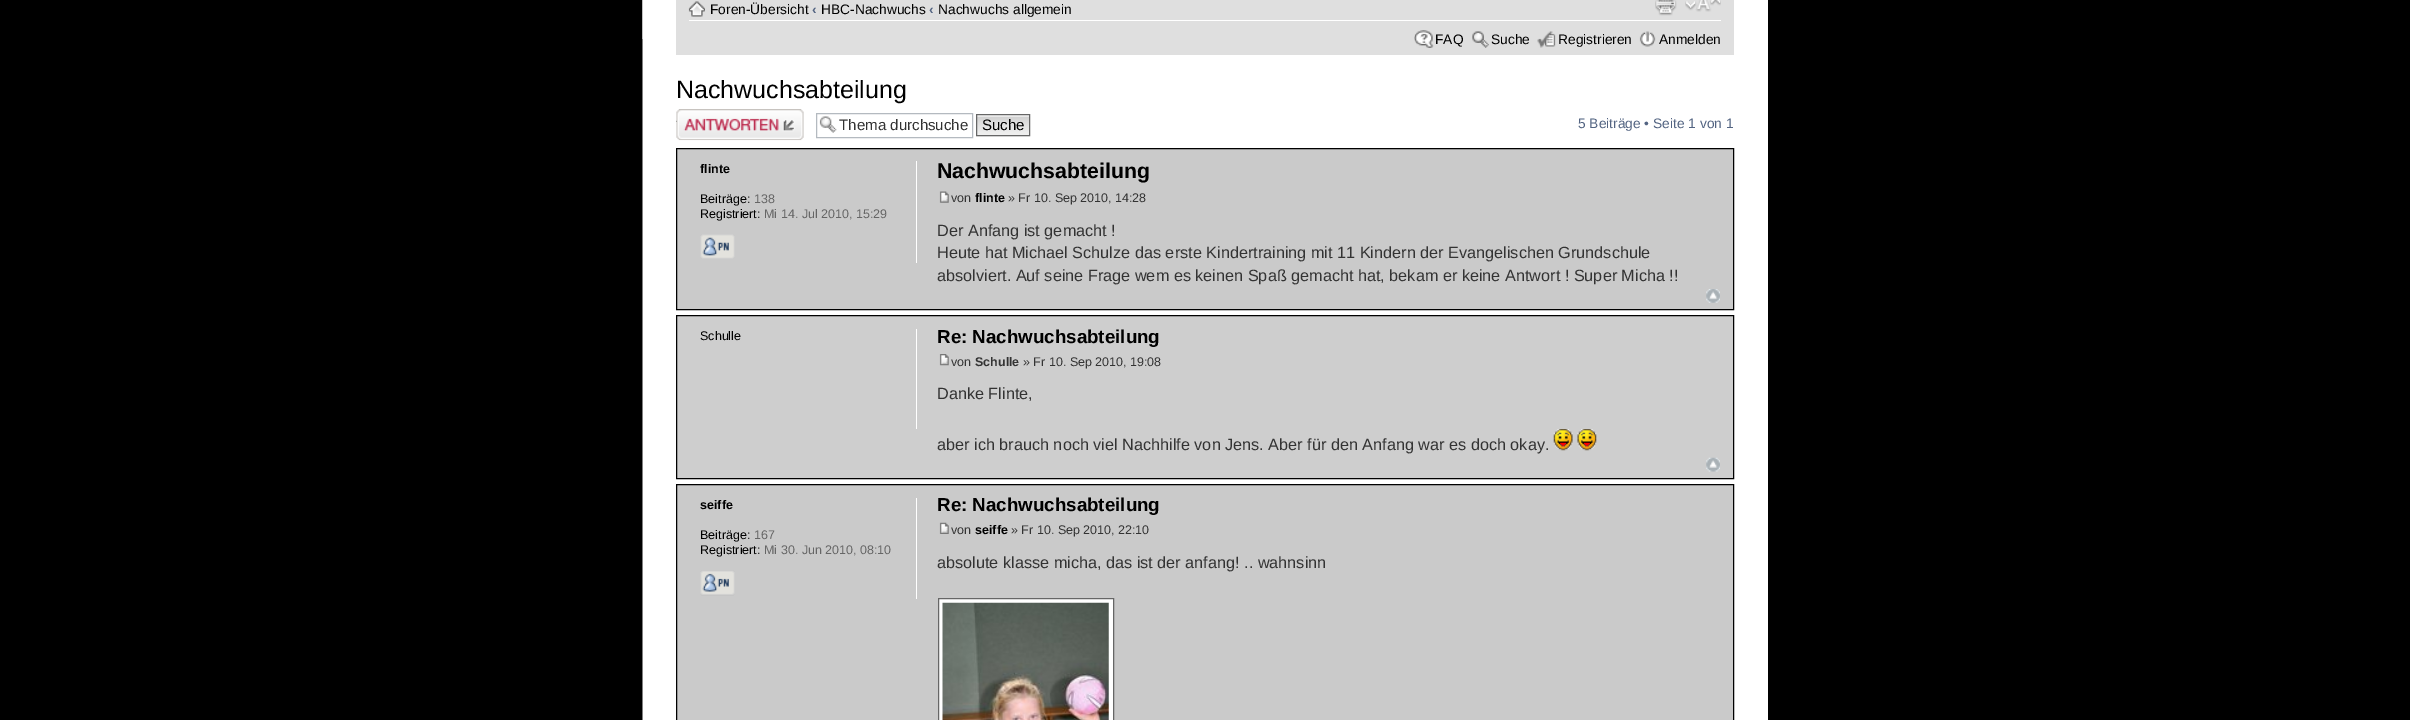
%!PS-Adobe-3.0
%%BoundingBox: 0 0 2410 720
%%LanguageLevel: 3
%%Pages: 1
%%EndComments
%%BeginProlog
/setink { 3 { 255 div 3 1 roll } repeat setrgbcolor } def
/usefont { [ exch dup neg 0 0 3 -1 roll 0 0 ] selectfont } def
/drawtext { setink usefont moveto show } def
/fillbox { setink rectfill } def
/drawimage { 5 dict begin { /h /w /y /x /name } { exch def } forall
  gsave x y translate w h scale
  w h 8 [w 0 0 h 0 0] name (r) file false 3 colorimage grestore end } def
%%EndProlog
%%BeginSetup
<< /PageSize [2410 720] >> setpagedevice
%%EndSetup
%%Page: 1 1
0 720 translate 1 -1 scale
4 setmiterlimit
0 0 2410 720 0 0 0 fillbox
643 0 1125 720 255 255 255 fillbox
642 39 1 681 128 128 128 fillbox
642 0 1 39 192 192 192 fillbox
676 0 1058 55 223 223 223 fillbox
689 20 1032 1 255 255 255 fillbox
(assets/img1.rgb) 688 1 17 16 drawimage
(Foren-Übersicht) 710 14 /LiberationSans-Regular 13.75 0 0 0 drawtext
(‹) 812 14 /LiberationSans-Bold 13.75 83 100 130 drawtext
(HBC-Nachwuchs) 821 14 /LiberationSans-Regular 13.75 0 0 0 drawtext
(‹) 929 14 /LiberationSans-Bold 13.75 83 100 130 drawtext
(Nachwuchs allgemein) 938 14 /LiberationSans-Regular 13.75 0 0 0 drawtext
(assets/img2.rgb) 1655 0 22 16 drawimage
(assets/img3.rgb) 1685 0 36 12 drawimage
(assets/img4.rgb) 1414 30 20 18 drawimage
(FAQ) 1435 44 /LiberationSans-Regular 13.75 0 0 0 drawtext
(assets/img5.rgb) 1472 31 17 17 drawimage
(Suche) 1491 44 /LiberationSans-Regular 13.75 0 0 0 drawtext
(assets/img6.rgb) 1537 31 19 17 drawimage
(Registrieren) 1558 44 /LiberationSans-Regular 13.75 0 0 0 drawtext
(assets/img7.rgb) 1639 31 17 16 drawimage
(Anmelden) 1659 44 /LiberationSans-Regular 13.75 0 0 0 drawtext
(Nachwuchsabteilung) 676 98 /LiberationSans-Regular 25 0 0 0 drawtext
(assets/img8.rgb) 676 109 128 32 drawimage
(assets/img9.rgb) 819 116 18 17 drawimage
180 186 192 setink
816.5 113.5 156 24 rectstroke
(Thema durchsuche) 839 130 /LiberationSans-Regular 15.1 51 51 51 drawtext
977 115 52 1 250 250 250 fillbox
(assets/img10.rgb) 976 116 54 21 drawimage
102 102 102 setink
976.5 114.5 53 21 rectstroke
(Suche) 982 130 /LiberationSans-Regular 15.1 0 0 0 drawtext
(5 Beiträge • Seite 1 von 1) 1578 128 /LiberationSans-Regular 13.75 83 100 130 drawtext
202 202 202 setink
676.5 148.5 moveto 1733.5 148.5 lineto 1733.5 309.5 lineto 676.5 309.5 lineto closepath gsave fill grestore
0 0 0 setink
stroke
916 161 1 102 255 255 255 fillbox
(flinte) 700 173 /LiberationSans-Bold 12.5 0 0 0 drawtext
(Beiträge:) 700 203 /LiberationSans-Regular 12.5 0 0 0 drawtext
(138) 754 203 /LiberationSans-Regular 12.5 102 102 102 drawtext
(Registriert:) 700 218 /LiberationSans-Regular 12.5 0 0 0 drawtext
(Mi 14. Jul 2010, 15:29) 764 218 /LiberationSans-Regular 12.5 102 102 102 drawtext
(assets/img11.rgb) 700 234 35 25 drawimage
(assets/img12.rgb) 700 234 35 25 drawimage
(Nachwuchsabteilung) 937 178 /LiberationSans-Bold 21.25 0 0 0 drawtext
(assets/img13.rgb) 939 191 10 12 drawimage
(von) 951 202 /LiberationSans-Regular 12.5 51 51 51 drawtext
(flinte) 975 202 /LiberationSans-Bold 12.5 0 0 0 drawtext
(» Fr 10. Sep 2010, 14:28) 1008 202 /LiberationSans-Regular 12.5 51 51 51 drawtext
(Der Anfang ist gemacht !) 937 236 /LiberationSans-Regular 16.25 51 51 51 drawtext
(Heute hat Michael Schulze das erste Kindertraining mit 11 Kindern der Evangelischen Grundschule) 937 258 /LiberationSans-Regular 16.25 51 51 51 drawtext
(absolviert. Auf seine Frage wem es keinen Spaß gemacht hat, bekam er keine Antwort ! Super Micha !!) 937 281 /LiberationSans-Regular 16.25 51 51 51 drawtext
(assets/img14.rgb) 1706 289 14 14 drawimage
206 206 206 setink
676.5 315.5 moveto 1733.5 315.5 lineto 1733.5 478.5 lineto 676.5 478.5 lineto closepath gsave fill grestore
0 0 0 setink
stroke
916 329 1 100 255 255 255 fillbox
(Schulle) 700 340 /LiberationSans-Regular 12.5 0 0 0 drawtext
(Re: Nachwuchsabteilung) 937 343 /LiberationSans-Bold 18.75 0 0 0 drawtext
(assets/img15.rgb) 939 354 10 12 drawimage
(von) 951 366 /LiberationSans-Regular 12.5 51 51 51 drawtext
(Schulle) 975 366 /LiberationSans-Bold 12.5 51 51 51 drawtext
(» Fr 10. Sep 2010, 19:08) 1023 366 /LiberationSans-Regular 12.5 51 51 51 drawtext
(Danke Flinte,) 937 399 /LiberationSans-Regular 16.25 51 51 51 drawtext
(aber ich brauch noch viel Nachhilfe von Jens. Aber für den Anfang war es doch okay.) 937 450 /LiberationSans-Regular 16.25 51 51 51 drawtext
(assets/img16.rgb) 1553 429 20 22 drawimage
(assets/img17.rgb) 1577 429 20 22 drawimage
(assets/img18.rgb) 1706 457 14 15 drawimage
202 202 202 setink
676.5 484.5 moveto 1733.5 484.5 lineto 1733.5 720.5 lineto 676.5 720.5 lineto closepath gsave fill grestore
0 0 0 setink
stroke
916 498 1 101 255 255 255 fillbox
(seiffe) 700 509 /LiberationSans-Bold 12.5 0 0 0 drawtext
(Beiträge:) 700 539 /LiberationSans-Regular 12.5 0 0 0 drawtext
(167) 754 539 /LiberationSans-Regular 12.5 102 102 102 drawtext
(Registriert:) 700 554 /LiberationSans-Regular 12.5 0 0 0 drawtext
(Mi 30. Jun 2010, 08:10) 764 554 /LiberationSans-Regular 12.5 102 102 102 drawtext
(assets/img19.rgb) 700 570 35 26 drawimage
(assets/img20.rgb) 700 570 35 25 drawimage
(Re: Nachwuchsabteilung) 937 511 /LiberationSans-Bold 18.75 0 0 0 drawtext
(assets/img21.rgb) 939 522 10 12 drawimage
(von) 951 534 /LiberationSans-Regular 12.5 51 51 51 drawtext
(seiffe) 975 534 /LiberationSans-Bold 12.5 0 0 0 drawtext
(» Fr 10. Sep 2010, 22:10) 1011 534 /LiberationSans-Regular 12.5 51 51 51 drawtext
(absolute klasse micha, das ist der anfang! .. wahnsinn) 937 568 /LiberationSans-Regular 16.25 51 51 51 drawtext
255 255 255 setink
938.5 598.5 moveto 1113.5 598.5 lineto 1113.5 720.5 lineto 938.5 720.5 lineto closepath gsave fill grestore
102 102 102 setink
stroke
(assets/img22.rgb) 942 602 167 118 drawimage
showpage
%%EOF
